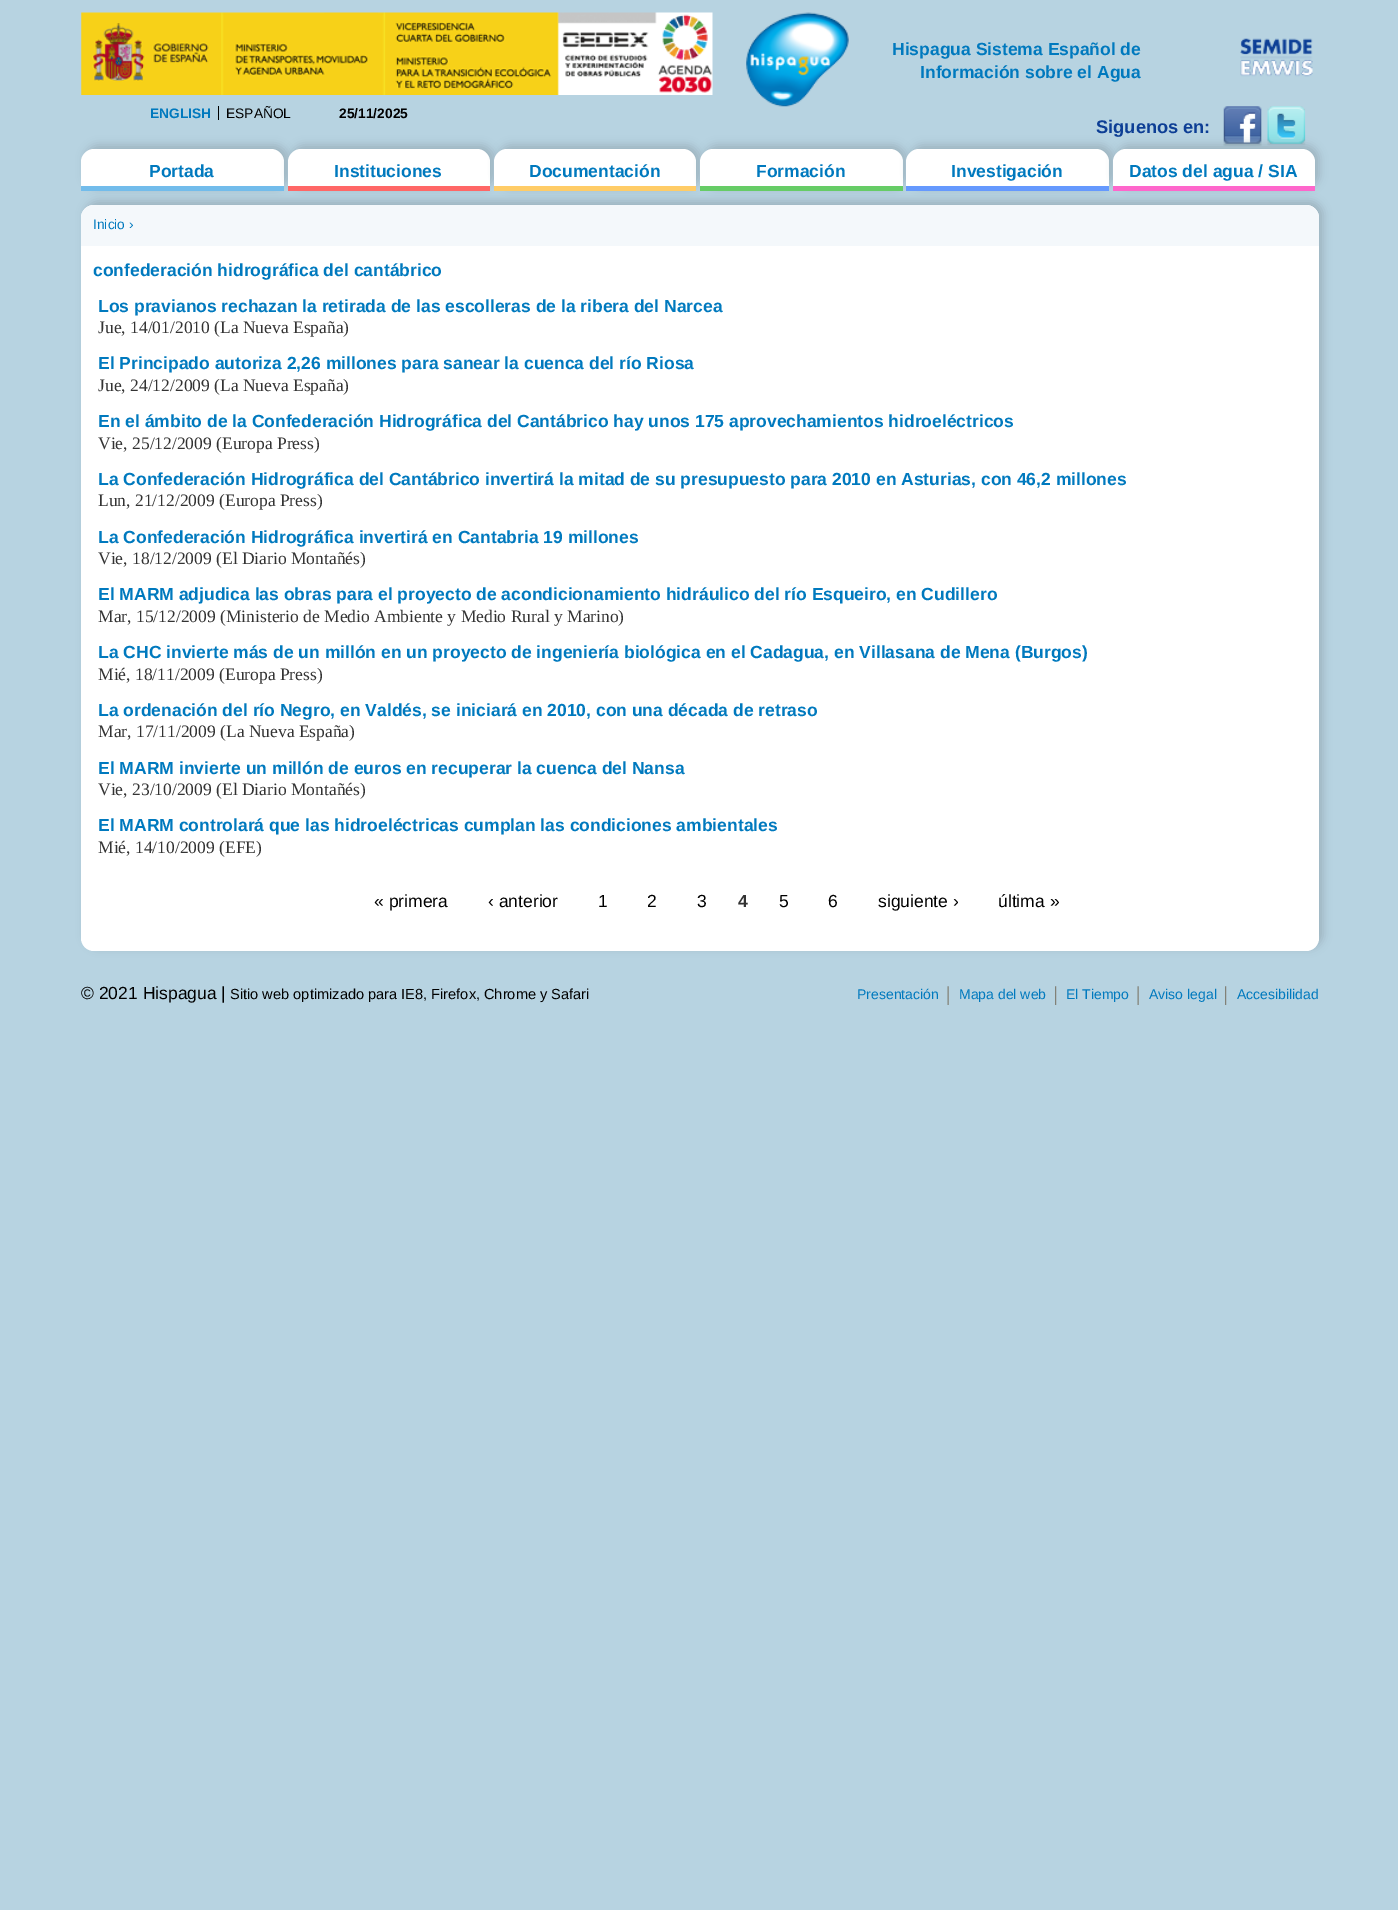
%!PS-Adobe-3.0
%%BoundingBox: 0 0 1398 1910
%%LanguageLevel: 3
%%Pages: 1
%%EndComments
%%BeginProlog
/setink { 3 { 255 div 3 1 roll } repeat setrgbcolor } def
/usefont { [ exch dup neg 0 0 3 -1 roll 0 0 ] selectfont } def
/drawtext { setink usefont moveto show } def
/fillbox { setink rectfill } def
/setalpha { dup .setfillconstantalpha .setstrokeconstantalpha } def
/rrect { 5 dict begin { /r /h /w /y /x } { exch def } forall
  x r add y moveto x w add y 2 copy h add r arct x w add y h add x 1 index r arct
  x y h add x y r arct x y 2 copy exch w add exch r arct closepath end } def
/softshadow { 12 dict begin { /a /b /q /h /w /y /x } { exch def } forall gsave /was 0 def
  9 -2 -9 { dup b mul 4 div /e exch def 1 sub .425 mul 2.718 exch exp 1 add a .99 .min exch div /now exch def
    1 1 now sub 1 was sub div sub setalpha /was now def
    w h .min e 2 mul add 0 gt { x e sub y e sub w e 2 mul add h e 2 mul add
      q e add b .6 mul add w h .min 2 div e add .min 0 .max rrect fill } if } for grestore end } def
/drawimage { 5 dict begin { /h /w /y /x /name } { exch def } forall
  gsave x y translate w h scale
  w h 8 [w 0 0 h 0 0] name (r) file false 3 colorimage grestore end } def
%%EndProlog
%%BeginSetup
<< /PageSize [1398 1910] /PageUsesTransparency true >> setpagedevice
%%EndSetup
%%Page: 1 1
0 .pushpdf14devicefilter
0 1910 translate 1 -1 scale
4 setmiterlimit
0 0 1398 1910 183 211 225 fillbox
(assets/img1.rgb) 81 12 632 83 drawimage
(assets/img2.rgb) 746 12 103 95 drawimage
(Hispagua Sistema Español de) 892 55 /LiberationSans-Bold 17.5 0 121 190 drawtext
(Información sobre el Agua) 920 78 /LiberationSans-Bold 17.5 0 121 190 drawtext
(assets/img3.rgb) 1240 38 73 39 drawimage
218 106 1 14 0 0 0 fillbox
(ENGLISH) 150 118 /LiberationSans-Bold 13.75 0 121 190 drawtext
(ESPAÑOL) 226 118 /LiberationSans-Regular 13.75 0 0 0 drawtext
(25/11/2025) 339 118 /LiberationSans-Bold 13.75 0 0 0 drawtext
(Siguenos en:) 1096 133 /LiberationSans-Bold 18.25 13 62 149 drawtext
(assets/img4.rgb) 1223 106 39 41 drawimage
(assets/img5.rgb) 1267 106 39 40 drawimage
156 179 191 setink
85 145 203 43 13 4.5 1 softshadow
85 201 1238 747 13 4.5 1 softshadow
255 255 255 setink
94 149 moveto 271 149 lineto 278 149 284 155 284 162 curveto 284 191 lineto 81 191 lineto 81 162 lineto 81 155 87 149 94 149 curveto closepath fill
81 186 203 5 114 188 235 fillbox
(Portada) 149 177 /LiberationSans-Bold 17.5 0 121 190 drawtext
156 179 191 setink
291 145 203 43 13 4.5 1 softshadow
255 255 255 setink
301 149 moveto 477 149 lineto 484 149 490 155 490 162 curveto 490 191 lineto 288 191 lineto 288 162 lineto 288 155 294 149 301 149 curveto closepath fill
288 186 202 5 255 103 102 fillbox
(Instituciones) 334 177 /LiberationSans-Bold 17.5 0 121 190 drawtext
156 179 191 setink
498 145 202 43 13 4.5 1 softshadow
255 255 255 setink
507 149 moveto 683 149 lineto 690 149 696 155 696 162 curveto 696 191 lineto 494 191 lineto 494 162 lineto 494 155 500 149 507 149 curveto closepath fill
494 186 202 5 255 204 103 fillbox
(Documentación) 529 177 /LiberationSans-Bold 17.5 0 121 190 drawtext
156 179 191 setink
704 145 202 43 13 4.5 1 softshadow
255 255 255 setink
713 149 moveto 890 149 lineto 897 149 903 155 903 162 curveto 903 191 lineto 700 191 lineto 700 162 lineto 700 155 706 149 713 149 curveto closepath fill
700 186 203 5 102 204 102 fillbox
(Formación) 756 177 /LiberationSans-Bold 17.5 0 121 190 drawtext
156 179 191 setink
910 145 203 43 13 4.5 1 softshadow
255 255 255 setink
919 149 moveto 1096 149 lineto 1103 149 1109 155 1109 162 curveto 1109 191 lineto 906 191 lineto 906 162 lineto 906 155 912 149 919 149 curveto closepath fill
906 186 203 5 101 153 254 fillbox
(Investigación) 951 177 /LiberationSans-Bold 17.5 0 121 190 drawtext
156 179 191 setink
1116 145 203 43 13 4.5 1 softshadow
255 255 255 setink
1126 149 moveto 1302 149 lineto 1309 149 1315 155 1315 162 curveto 1315 191 lineto 1113 191 lineto 1113 162 lineto 1113 155 1119 149 1126 149 curveto closepath fill
1113 186 202 5 254 102 203 fillbox
(Datos del agua / SIA) 1129 177 /LiberationSans-Bold 17.5 0 121 190 drawtext
255 255 255 setink
81 205 1238 746 13 rrect fill
244 248 251 setink
94 205 moveto 1306 205 lineto 1313 205 1319 211 1319 218 curveto 1319 246 lineto 81 246 lineto 81 218 lineto 81 211 87 205 94 205 curveto closepath fill
(Inicio ›) 93 229 /LiberationSans-Regular 13.75 0 121 190 drawtext
(confederación hidrográfica del cantábrico) 93 276 /LiberationSans-Bold 17.5 0 121 190 drawtext
(Los pravianos rechazan la retirada de las escolleras de la ribera del Narcea) 98 312 /LiberationSans-Bold 17.5 0 121 190 drawtext
(Jue, 14/01/2010 \(La Nueva España\)) 98 333 /LiberationSerif-Regular 17.5 51 51 51 drawtext
(El Principado autoriza 2,26 millones para sanear la cuenca del río Riosa) 98 369 /LiberationSans-Bold 17.5 0 121 190 drawtext
(Jue, 24/12/2009 \(La Nueva España\)) 98 391 /LiberationSerif-Regular 17.5 51 51 51 drawtext
(En el ámbito de la Confederación Hidrográfica del Cantábrico hay unos 175 aprovechamientos hidroeléctricos) 98 427 /LiberationSans-Bold 17.5 0 121 190 drawtext
(Vie, 25/12/2009 \(Europa Press\)) 98 449 /LiberationSerif-Regular 17.5 51 51 51 drawtext
(La Confederación Hidrográfica del Cantábrico invertirá la mitad de su presupuesto para 2010 en Asturias, con 46,2 millones) 98 485 /LiberationSans-Bold 17.5 0 121 190 drawtext
(Lun, 21/12/2009 \(Europa Press\)) 98 506 /LiberationSerif-Regular 17.5 51 51 51 drawtext
(La Confederación Hidrográfica invertirá en Cantabria 19 millones) 98 543 /LiberationSans-Bold 17.5 0 121 190 drawtext
(Vie, 18/12/2009 \(El Diario Montañés\)) 98 564 /LiberationSerif-Regular 17.5 51 51 51 drawtext
(El MARM adjudica las obras para el proyecto de acondicionamiento hidráulico del río Esqueiro, en Cudillero) 98 600 /LiberationSans-Bold 17.5 0 121 190 drawtext
(Mar, 15/12/2009 \(Ministerio de Medio Ambiente y Medio Rural y Marino\)) 98 622 /LiberationSerif-Regular 17.5 51 51 51 drawtext
(La CHC invierte más de un millón en un proyecto de ingeniería biológica en el Cadagua, en Villasana de Mena \(Burgos\)) 98 658 /LiberationSans-Bold 17.5 0 121 190 drawtext
(Mié, 18/11/2009 \(Europa Press\)) 98 680 /LiberationSerif-Regular 17.5 51 51 51 drawtext
(La ordenación del río Negro, en Valdés, se iniciará en 2010, con una década de retraso) 98 716 /LiberationSans-Bold 17.5 0 121 190 drawtext
(Mar, 17/11/2009 \(La Nueva España\)) 98 737 /LiberationSerif-Regular 17.5 51 51 51 drawtext
(El MARM invierte un millón de euros en recuperar la cuenca del Nansa) 98 774 /LiberationSans-Bold 17.5 0 121 190 drawtext
(Vie, 23/10/2009 \(El Diario Montañés\)) 98 795 /LiberationSerif-Regular 17.5 51 51 51 drawtext
(El MARM controlará que las hidroeléctricas cumplan las condiciones ambientales) 98 831 /LiberationSans-Bold 17.5 0 121 190 drawtext
(Mié, 14/10/2009 \(EFE\)) 98 853 /LiberationSerif-Regular 17.5 51 51 51 drawtext
(« primera) 374 907 /LiberationSans-Regular 17.5 0 0 0 drawtext
(‹ anterior) 488 907 /LiberationSans-Regular 17.5 0 0 0 drawtext
(1) 598 907 /LiberationSans-Regular 17.5 0 0 0 drawtext
(2) 647 907 /LiberationSans-Regular 17.5 0 0 0 drawtext
(3) 697 907 /LiberationSans-Regular 17.5 0 0 0 drawtext
(4) 738 907 /LiberationSans-Bold 17.5 51 51 51 drawtext
(5) 779 907 /LiberationSans-Regular 17.5 0 0 0 drawtext
(6) 828 907 /LiberationSans-Regular 17.5 0 0 0 drawtext
(siguiente ›) 878 907 /LiberationSans-Regular 17.5 0 0 0 drawtext
(última ») 998 907 /LiberationSans-Regular 17.5 0 0 0 drawtext
(© 2021 Hispagua |) 81 999 /LiberationSans-Regular 17.5 0 0 0 drawtext
(Sitio web optimizado para IE8, Firefox, Chrome y Safari) 230 999 /LiberationSans-Regular 14.6 0 0 0 drawtext
(Presentación) 857 999 /LiberationSans-Regular 14 0 121 190 drawtext
(assets/img6.rgb) 947 986 2 19 drawimage
(Mapa del web) 959 999 /LiberationSans-Regular 14 0 121 190 drawtext
(assets/img7.rgb) 1055 986 2 19 drawimage
(El Tiempo) 1066 999 /LiberationSans-Regular 14 0 121 190 drawtext
(assets/img6.rgb) 1137 986 2 19 drawimage
(Aviso legal) 1149 999 /LiberationSans-Regular 14 0 121 190 drawtext
(assets/img7.rgb) 1225 986 2 19 drawimage
(Accesibilidad) 1237 999 /LiberationSans-Regular 14 0 121 190 drawtext
.poppdf14devicefilter showpage
%%EOF
